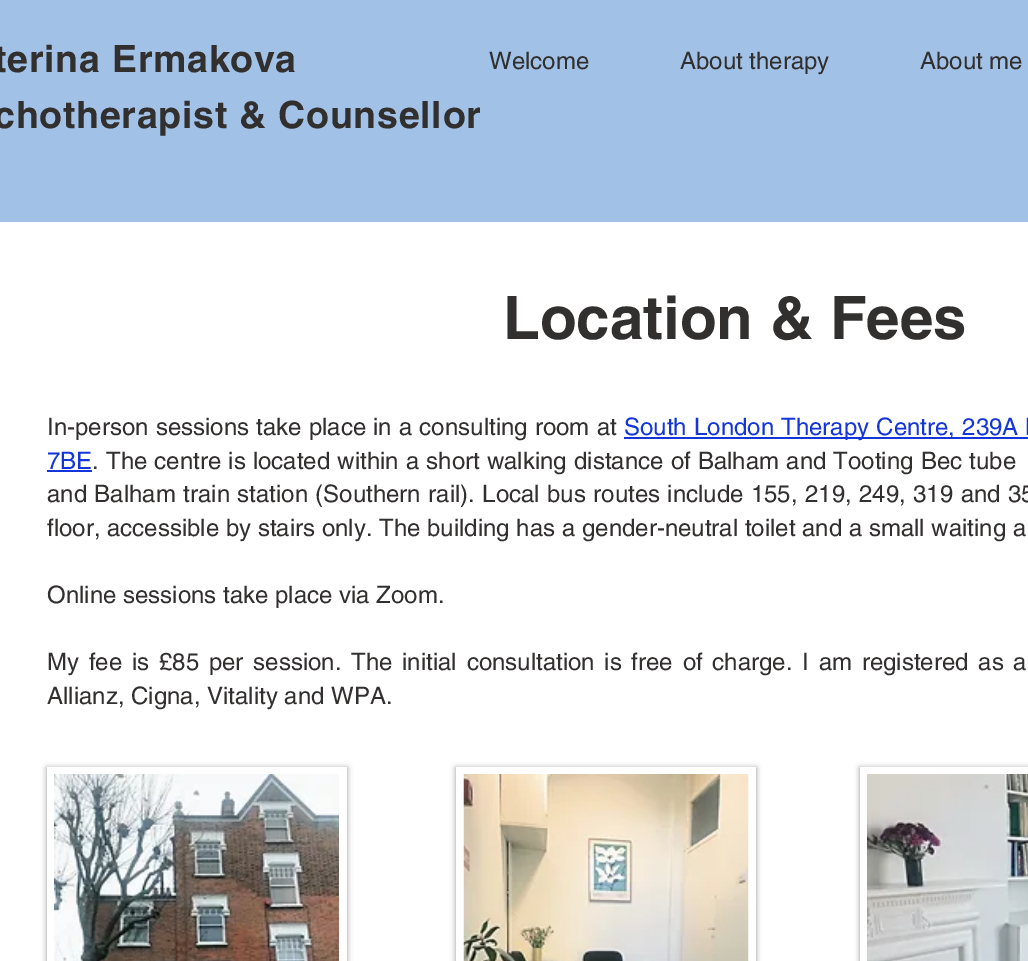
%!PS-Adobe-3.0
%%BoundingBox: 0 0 1028 961
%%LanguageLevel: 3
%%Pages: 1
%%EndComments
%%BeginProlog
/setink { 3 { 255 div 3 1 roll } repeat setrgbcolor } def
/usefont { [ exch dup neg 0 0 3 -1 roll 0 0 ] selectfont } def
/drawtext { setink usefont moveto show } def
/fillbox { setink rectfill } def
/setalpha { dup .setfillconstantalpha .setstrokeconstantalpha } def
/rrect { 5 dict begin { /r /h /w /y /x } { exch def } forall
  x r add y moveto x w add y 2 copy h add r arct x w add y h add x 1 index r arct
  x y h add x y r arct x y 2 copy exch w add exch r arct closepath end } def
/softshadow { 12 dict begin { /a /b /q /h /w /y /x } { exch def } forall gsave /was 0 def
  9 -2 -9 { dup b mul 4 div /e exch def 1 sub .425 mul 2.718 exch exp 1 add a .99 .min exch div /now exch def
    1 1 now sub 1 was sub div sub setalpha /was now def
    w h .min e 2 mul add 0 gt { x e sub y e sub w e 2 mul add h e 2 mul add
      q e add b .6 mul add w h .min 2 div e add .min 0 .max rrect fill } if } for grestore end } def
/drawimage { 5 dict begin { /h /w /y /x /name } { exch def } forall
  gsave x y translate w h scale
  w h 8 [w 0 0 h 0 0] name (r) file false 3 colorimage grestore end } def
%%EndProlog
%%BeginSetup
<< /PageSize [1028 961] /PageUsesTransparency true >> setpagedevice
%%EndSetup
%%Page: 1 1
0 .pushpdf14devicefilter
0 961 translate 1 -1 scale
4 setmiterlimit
0 0 1028 961 255 255 255 fillbox
0 0 1028 222 161 193 231 fillbox
/helvetica-Bold 37.5 usefont
50 47 47 setink
-6 72 moveto 0.75 0 (terina Ermakova) ashow
-6 128 moveto 0.75 0 (chotherapist & Counsellor) ashow
(Welcome) 489 69 /helvetica-Regular 24 50 47 47 drawtext
(About therapy) 680 69 /helvetica-Regular 24 50 47 47 drawtext
(About me) 920 69 /helvetica-Regular 24 50 47 47 drawtext
(Location & Fees) 503 339 /helvetica-Bold 60 50 47 47 drawtext
/helvetica-Regular 24 usefont
47 435 moveto 0.5 0 32 (In-person sessions take place in a consulting room at) widthshow
624 437 404 2 20 53 218 fillbox
624 435 moveto 0.5 0 32 (South London Therapy Centre, 239A B) widthshow
(7BE) 47 469 /helvetica-Regular 24 20 53 218 drawtext
47 470 45 2 20 53 218 fillbox
50 47 47 setink
92 469 moveto 0.5 0 32 (. The centre is located within a short walking distance of Balham and Tooting Bec tube) widthshow
47 502 moveto 0.75 0 32 (and Balham train station \(Southern rail\). Local bus routes include 155, 219, 249, 319 and 35) widthshow
(floor, accessible by stairs only. The building has a gender-neutral toilet and a small waiting a) 47 536 /helvetica-Regular 24 50 47 47 drawtext
(Online sessions take place via Zoom.) 47 603 /helvetica-Regular 24 50 47 47 drawtext
47 670 moveto 3.1 0 32 (My fee is £85 per session. The initial consultation is free of charge. I am registered as a) widthshow
(Allianz, Cigna, Vitality and WPA.) 47 704 /helvetica-Regular 24 50 47 47 drawtext
0 0 0 setink
47 768 300 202 0 3 0.4 softshadow
47 767 300 194 255 255 255 fillbox
(assets/img1.rgb) 54 774 285 187 drawimage
gsave
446 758 moveto 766 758 lineto 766 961 lineto 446 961 lineto closepath 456 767 moveto 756 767 lineto 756 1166 lineto 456 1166 lineto closepath eoclip newpath
0 0 0 setink
456 768 300 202 0 3 0.4 softshadow
grestore
(assets/img2.rgb) 463 774 286 187 drawimage
gsave
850 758 moveto 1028 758 lineto 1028 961 lineto 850 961 lineto closepath 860 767 moveto 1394 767 lineto 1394 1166 lineto 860 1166 lineto closepath eoclip newpath
0 0 0 setink
860 768 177 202 0 3 0.4 softshadow
grestore
(assets/img3.rgb) 867 774 161 187 drawimage
.poppdf14devicefilter showpage
%%EOF
